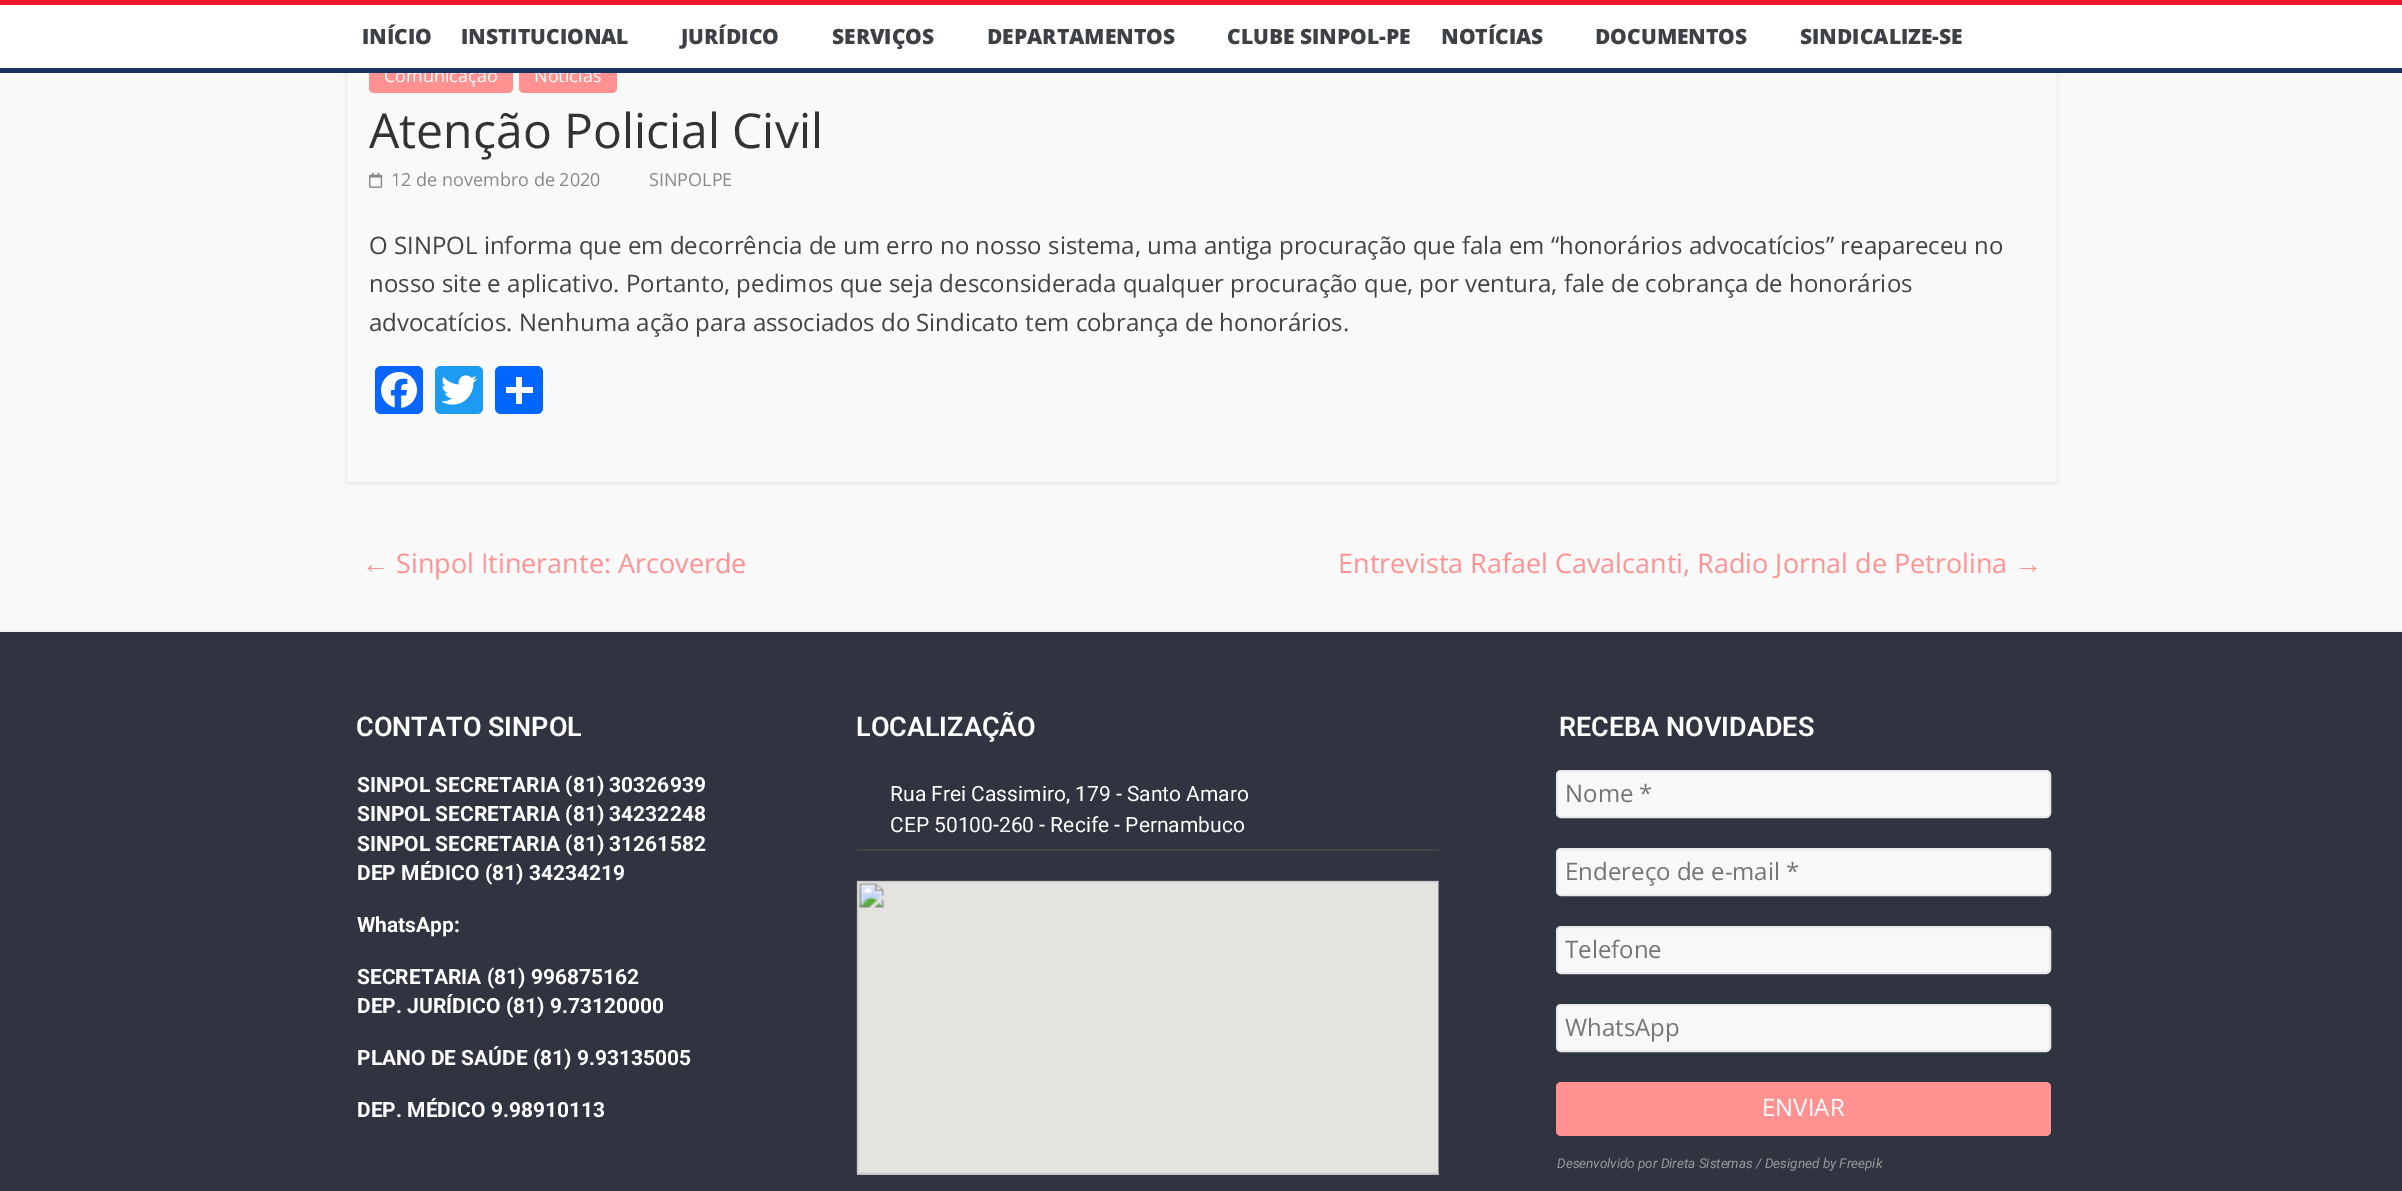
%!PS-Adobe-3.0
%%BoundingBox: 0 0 2402 1191
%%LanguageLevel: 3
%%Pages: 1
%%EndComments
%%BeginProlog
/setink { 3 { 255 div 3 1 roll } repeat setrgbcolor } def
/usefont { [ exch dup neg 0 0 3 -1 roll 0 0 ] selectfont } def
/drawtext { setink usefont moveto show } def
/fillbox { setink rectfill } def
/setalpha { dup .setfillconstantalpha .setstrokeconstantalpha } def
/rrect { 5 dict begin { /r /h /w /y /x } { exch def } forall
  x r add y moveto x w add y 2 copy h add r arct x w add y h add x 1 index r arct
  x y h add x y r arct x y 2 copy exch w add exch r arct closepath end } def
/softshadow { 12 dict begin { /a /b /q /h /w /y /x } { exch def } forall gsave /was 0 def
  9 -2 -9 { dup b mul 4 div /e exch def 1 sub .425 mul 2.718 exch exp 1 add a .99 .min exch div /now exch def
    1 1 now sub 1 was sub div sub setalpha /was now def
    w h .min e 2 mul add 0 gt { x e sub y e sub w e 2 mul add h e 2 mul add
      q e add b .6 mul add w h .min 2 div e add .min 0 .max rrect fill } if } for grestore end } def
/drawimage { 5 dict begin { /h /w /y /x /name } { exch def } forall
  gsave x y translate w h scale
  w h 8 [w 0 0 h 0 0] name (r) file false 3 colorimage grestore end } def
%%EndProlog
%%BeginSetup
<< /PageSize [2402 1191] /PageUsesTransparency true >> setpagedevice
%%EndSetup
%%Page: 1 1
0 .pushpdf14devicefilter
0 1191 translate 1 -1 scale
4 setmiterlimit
0 0 2402 1191 249 249 249 fillbox
gsave
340 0 moveto 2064 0 lineto 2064 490 lineto 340 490 lineto closepath 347 -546 moveto 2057 -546 lineto 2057 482 lineto 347 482 lineto closepath eoclip newpath
0 0 0 setink
347 -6 1710 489 0 2 0.1 softshadow
grestore
255 145 145 setink
369 60 144 33 5 rrect fill
519 60 98 33 5 rrect fill
0 5 2402 63 255 255 255 fillbox
0 0 2402 5 244 21 40 fillbox
(Comunicação) 384 82 /OpenSans-Regular 18 255 255 255 drawtext
(Notícias) 534 82 /OpenSans-Regular 18 255 255 255 drawtext
0 68 2402 5 24 50 98 fillbox
(INÍCIO) 362 44 /OpenSans-ExtraBold 21 61 64 69 drawtext
(INSTITUCIONAL) 461 44 /OpenSans-ExtraBold 21 61 64 69 drawtext
(JURÍDICO) 681 44 /OpenSans-ExtraBold 21 61 64 69 drawtext
(SERVIÇOS) 832 44 /OpenSans-ExtraBold 21 61 64 69 drawtext
(DEPARTAMENTOS) 987 44 /OpenSans-ExtraBold 21 61 64 69 drawtext
(CLUBE SINPOL-PE) 1227 44 /OpenSans-ExtraBold 21 61 64 69 drawtext
(NOTÍCIAS) 1441 44 /OpenSans-ExtraBold 21 61 64 69 drawtext
(DOCUMENTOS) 1595 44 /OpenSans-ExtraBold 21 61 64 69 drawtext
(SINDICALIZE-SE) 1800 44 /OpenSans-ExtraBold 21 61 64 69 drawtext
(Atenção Policial Civil) 369 148 /OpenSans-Regular 48 51 51 51 drawtext
(assets/img1.rgb) 369 172 14 16 drawimage
(12 de novembro de 2020) 391 186 /OpenSans-Regular 18 136 136 136 drawtext
(SINPOLPE) 649 186 /OpenSans-Regular 18 136 136 136 drawtext
(O SINPOL informa que em decorrência de um erro no nosso sistema, uma antiga procuração que fala em “honorários advocatícios” reapareceu no) 369 254 /OpenSans-Regular 24 68 68 68 drawtext
(nosso site e aplicativo. Portanto, pedimos que seja desconsiderada qualquer procuração que, por ventura, fale de cobrança de honorários) 369 292 /OpenSans-Regular 24 68 68 68 drawtext
(advocatícios. Nenhuma ação para associados do Sindicato tem cobrança de honorários.) 369 331 /OpenSans-Regular 24 68 68 68 drawtext
8 102 255 setink
375 366 48 48 6 rrect fill
(assets/img2.rgb) 381 372 36 36 drawimage
29 155 240 setink
435 366 48 48 6 rrect fill
(assets/img3.rgb) 441 375 36 30 drawimage
1 102 255 setink
495 366 48 48 6 rrect fill
516 377 6 27 255 255 255 fillbox
506 387 27 6 255 255 255 fillbox
(←) 362 573 /LiberationSerif-Regular 27 255 145 145 drawtext
(Sinpol Itinerante: Arcoverde) 396 573 /OpenSans-Regular 27 255 145 145 drawtext
(Entrevista Rafael Cavalcanti, Radio Jornal de Petrolina) 1338 573 /OpenSans-Regular 27 255 145 145 drawtext
(→) 2015 573 /LiberationSerif-Regular 27 255 145 145 drawtext
0 632 2402 559 48 52 64 fillbox
0 630 2402 2 242 242 242 fillbox
(CONTATO SINPOL) 356 736 /Roboto-SemiBold 27 255 255 255 drawtext
(SINPOL SECRETARIA \(81\) 30326939) 357 792 /Roboto-Bold 21 255 255 255 drawtext
(SINPOL SECRETARIA \(81\) 34232248) 357 821 /Roboto-Bold 21 255 255 255 drawtext
(SINPOL SECRETARIA \(81\) 31261582) 357 851 /Roboto-Bold 21 255 255 255 drawtext
(DEP MÉDICO \(81\) 34234219) 357 880 /Roboto-Bold 21 255 255 255 drawtext
(WhatsApp:) 357 932 /Roboto-Bold 21 255 255 255 drawtext
(SECRETARIA \(81\) 996875162) 357 984 /Roboto-Bold 21 255 255 255 drawtext
(DEP. JURÍDICO \(81\) 9.73120000) 357 1013 /Roboto-Bold 21 255 255 255 drawtext
(PLANO DE SAÚDE \(81\) 9.93135005) 357 1065 /Roboto-Bold 21 255 255 255 drawtext
(DEP. MÉDICO 9.98910113) 357 1117 /Roboto-Bold 21 255 255 255 drawtext
(LOCALIZAÇÃO) 856 736 /Roboto-SemiBold 27 255 255 255 drawtext
857 849 582 2 68 68 68 fillbox
(Rua Frei Cassimiro, 179 - Santo Amaro) 890 801 /Roboto-Regular 21 255 255 255 drawtext
(CEP 50100-260 - Recife - Pernambuco) 890 832 /Roboto-Regular 21 255 255 255 drawtext
(assets/img4.rgb) 856 880 583 295 drawimage
(RECEBA NOVIDADES) 1559 736 /Roboto-SemiBold 27 255 255 255 drawtext
248 248 248 setink
1557 771 493 46 4 rrect gsave fill grestore
234 234 234 setink
2 setlinewidth
stroke
(Nome *) 1565 802 /OpenSans-Regular 24 117 117 117 drawtext
248 248 248 setink
1557 849 493 46 4 rrect gsave fill grestore
234 234 234 setink
stroke
(Endereço de e-mail *) 1565 880 /OpenSans-Regular 24 117 117 117 drawtext
248 248 248 setink
1557 927 493 46 4 rrect gsave fill grestore
234 234 234 setink
stroke
(Telefone) 1565 958 /OpenSans-Regular 24 117 117 117 drawtext
248 248 248 setink
1557 1005 493 46 4 rrect gsave fill grestore
234 234 234 setink
stroke
(WhatsApp) 1565 1036 /OpenSans-Regular 24 117 117 117 drawtext
255 145 145 setink
1556 1082 495 54 5 rrect fill
(ENVIAR) 1762 1116 /OpenSans-Regular 24 255 255 255 drawtext
(Desenvolvido por Direta Sistemas / Designed by Freepik) 1557 1168 /Roboto-Italic 13.5 153 153 153 drawtext
.poppdf14devicefilter showpage
%%EOF
